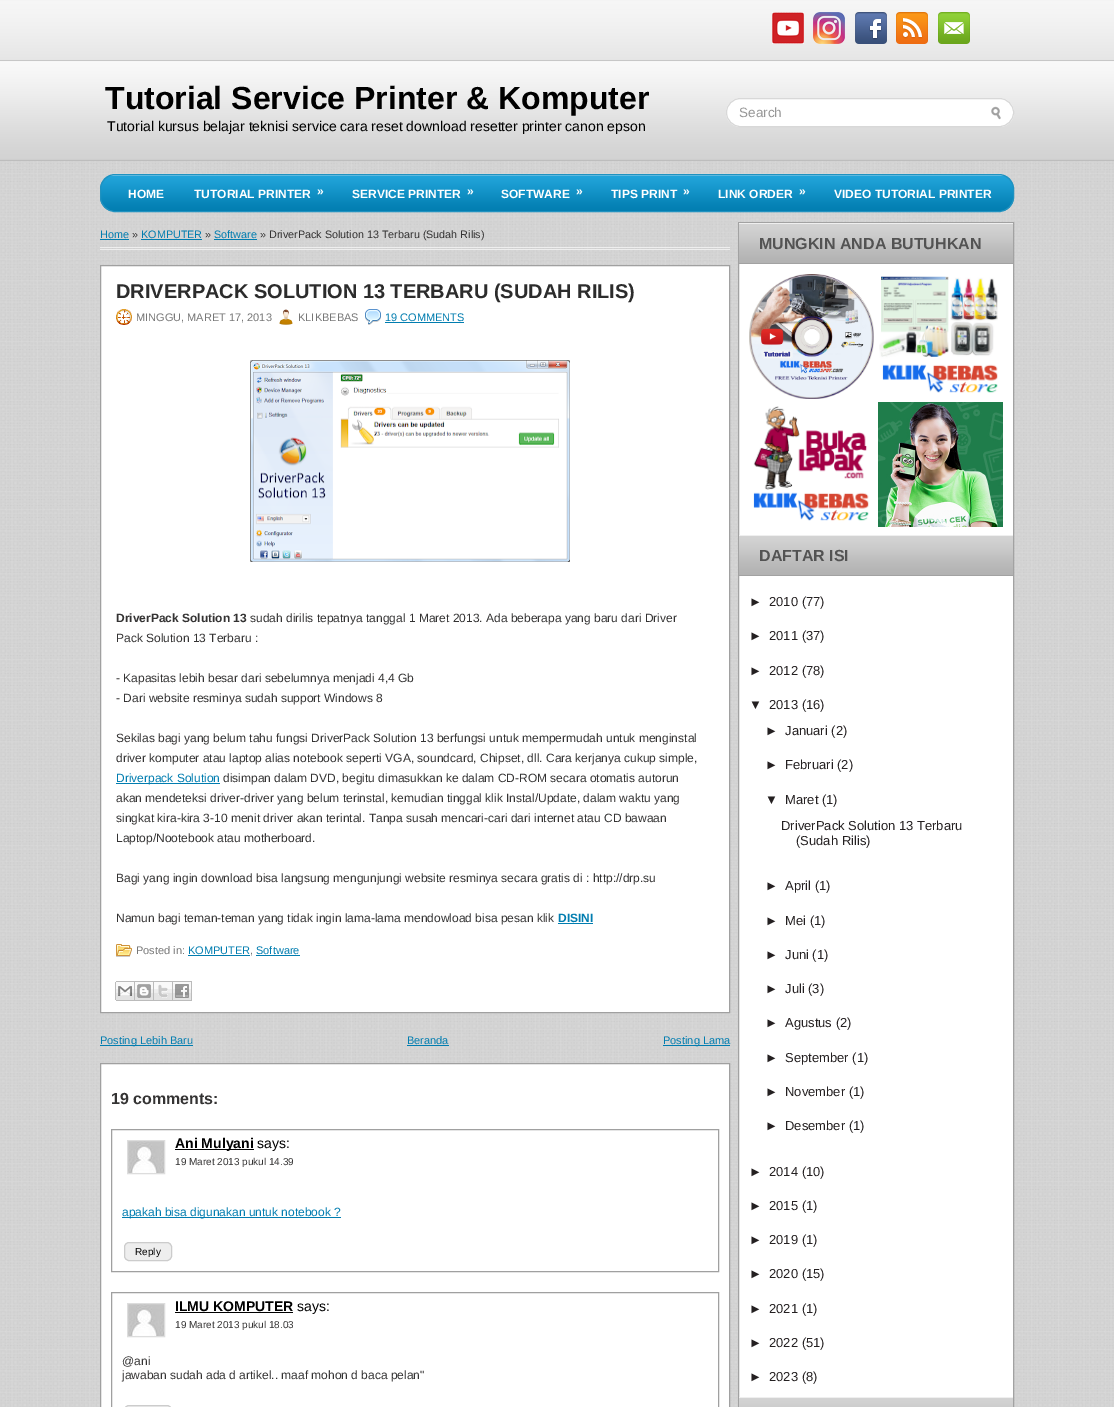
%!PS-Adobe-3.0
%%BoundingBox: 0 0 1114 1407
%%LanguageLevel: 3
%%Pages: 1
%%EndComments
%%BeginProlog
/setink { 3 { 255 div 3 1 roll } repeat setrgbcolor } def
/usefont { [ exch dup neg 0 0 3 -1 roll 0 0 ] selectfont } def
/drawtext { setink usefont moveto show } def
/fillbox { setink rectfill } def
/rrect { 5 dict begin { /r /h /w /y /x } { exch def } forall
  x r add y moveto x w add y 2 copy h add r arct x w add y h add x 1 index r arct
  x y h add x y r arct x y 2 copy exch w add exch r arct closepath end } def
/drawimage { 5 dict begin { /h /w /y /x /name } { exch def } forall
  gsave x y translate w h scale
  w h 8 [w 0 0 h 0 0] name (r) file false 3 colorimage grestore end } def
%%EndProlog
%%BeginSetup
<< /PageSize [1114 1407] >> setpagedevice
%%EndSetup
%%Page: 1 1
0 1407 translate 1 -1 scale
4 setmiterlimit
0 0 1114 1407 255 255 255 fillbox
(assets/img1.rgb) 0 161 1114 1246 drawimage
(assets/img2.rgb) 0 0 1114 161 drawimage
(assets/img3.rgb) 772 12 32 32 drawimage
(assets/img4.rgb) 813 12 32 32 drawimage
(assets/img5.rgb) 855 12 32 32 drawimage
(assets/img6.rgb) 896 12 32 32 drawimage
(assets/img7.rgb) 938 12 32 32 drawimage
(Tutorial Service Printer & Komputer) 105 109 /LiberationSans-Bold 32 0 0 0 drawtext
(Tutorial kursus belajar teknisi service cara reset download resetter printer canon epson) 107 131 /LiberationSans-Regular 14 0 0 0 drawtext
255 255 255 setink
726 98 288 29 14.5 rrect fill
(assets/img8.rgb) 991 106 10 14 drawimage
216 216 216 setink
726.5 98.5 287 28 14 rrect stroke
(Search) 739 117 /LiberationSans-Regular 13.5 151 151 151 drawtext
(assets/img9.rgb) 100 175 914 36 drawimage
32 146 192 setink
100.5 174.5 913 37 14.5 rrect stroke
(HOME) 128 198 /LiberationSans-Bold 12 255 255 255 drawtext
(TUTORIAL PRINTER) 194 198 /LiberationSans-Bold 12 255 255 255 drawtext
(») 317 195 /LiberationSans-Bold 12 255 255 255 drawtext
(SERVICE PRINTER) 352 198 /LiberationSans-Bold 12 255 255 255 drawtext
(») 467 195 /LiberationSans-Bold 12 255 255 255 drawtext
(SOFTWARE) 501 198 /LiberationSans-Bold 12 255 255 255 drawtext
(») 576 195 /LiberationSans-Bold 12 255 255 255 drawtext
(TIPS PRINT) 611 198 /LiberationSans-Bold 12 255 255 255 drawtext
(») 683 195 /LiberationSans-Bold 12 255 255 255 drawtext
(LINK ORDER) 718 198 /LiberationSans-Bold 12 255 255 255 drawtext
(») 799 195 /LiberationSans-Bold 12 255 255 255 drawtext
(VIDEO TUTORIAL PRINTER) 834 198 /LiberationSans-Bold 12 255 255 255 drawtext
100 247 630 1 238 238 238 fillbox
100 249 630 1 238 238 238 fillbox
(Home) 100 238 /LiberationSans-Regular 10.8 1 125 176 drawtext
100 239 29 1 1 125 176 fillbox
(») 132 238 /LiberationSans-Regular 10.8 52 51 51 drawtext
(KOMPUTER) 141 238 /LiberationSans-Regular 10.8 1 125 176 drawtext
141 239 61 1 1 125 176 fillbox
(») 205 238 /LiberationSans-Regular 10.8 52 51 51 drawtext
(Software) 214 238 /LiberationSans-Regular 10.8 1 125 176 drawtext
214 239 43 1 1 125 176 fillbox
(» DriverPack Solution 13 Terbaru \(Sudah Rilis\)) 260 238 /LiberationSans-Regular 10.8 52 51 51 drawtext
255 255 255 setink
100.5 265.5 moveto 729.5 265.5 lineto 729.5 1012.5 lineto 100.5 1012.5 lineto closepath gsave fill grestore
160 160 160 setink
stroke
(DRIVERPACK SOLUTION 13 TERBARU \(SUDAH RILIS\)) 116 298 /LiberationSans-Bold 20 44 44 44 drawtext
(assets/img10.rgb) 116 309 16 16 drawimage
(MINGGU, MARET 17, 2013) 136 321 /LiberationSans-Regular 11 119 119 119 drawtext
(assets/img11.rgb) 279 309 14 16 drawimage
(KLIKBEBAS) 298 321 /LiberationSans-Regular 11 119 119 119 drawtext
(assets/img12.rgb) 365 309 16 16 drawimage
(19 COMMENTS) 385 321 /LiberationSans-Regular 11 1 125 176 drawtext
385 322 79 1 1 125 176 fillbox
(assets/img13.rgb) 250 360 320 202 drawimage
(DriverPack Solution 13) 116 622 /LiberationSans-Bold 12 52 51 51 drawtext
(sudah dirilis tepatnya tanggal 1 Maret 2013. Ada beberapa yang baru dari Driver) 250 622 /LiberationSans-Regular 12 52 51 51 drawtext
(Pack Solution 13 Terbaru :) 116 642 /LiberationSans-Regular 12 52 51 51 drawtext
(- Kapasitas lebih besar dari sebelumnya menjadi 4,4 Gb) 116 682 /LiberationSans-Regular 12 52 51 51 drawtext
(- Dari website resminya sudah support Windows 8) 116 702 /LiberationSans-Regular 12 52 51 51 drawtext
(Sekilas bagi yang belum tahu fungsi DriverPack Solution 13 berfungsi untuk mempermudah untuk menginstal) 116 742 /LiberationSans-Regular 12 52 51 51 drawtext
(driver komputer atau laptop alias notebook seperti VGA, soundcard, Chipset, dll. Cara kerjanya cukup simple,) 116 762 /LiberationSans-Regular 12 52 51 51 drawtext
116 783 104 1 1 125 176 fillbox
(Driverpack Solution) 116 782 /LiberationSans-Regular 12 1 125 176 drawtext
(disimpan dalam DVD, begitu dimasukkan ke dalam CD-ROM secara otomatis autorun) 223 782 /LiberationSans-Regular 12 52 51 51 drawtext
(akan mendeteksi driver-driver yang belum terinstal, kemudian tinggal klik Instal/Update, dalam waktu yang) 116 802 /LiberationSans-Regular 12 52 51 51 drawtext
(singkat kira-kira 3-10 menit driver akan terintal. Tanpa susah mencari-cari dari internet atau CD bawaan) 116 822 /LiberationSans-Regular 12 52 51 51 drawtext
(Laptop/Nootebook atau motherboard.) 116 842 /LiberationSans-Regular 12 52 51 51 drawtext
(Bagi yang ingin download bisa langsung mengunjungi website resminya secara gratis di : http://drp.su) 116 882 /LiberationSans-Regular 12 52 51 51 drawtext
(Namun bagi teman-teman yang tidak ingin lama-lama mendowload bisa pesan klik) 116 922 /LiberationSans-Regular 12 52 51 51 drawtext
(DISINI) 558 922 /LiberationSans-Bold 12 1 125 176 drawtext
558 923 35 1 1 125 176 fillbox
(assets/img14.rgb) 116 944 16 13 drawimage
(Posted in:) 136 954 /LiberationSans-Regular 11 119 119 119 drawtext
(KOMPUTER) 188 954 /LiberationSans-Regular 11 1 125 176 drawtext
(,) 250 954 /LiberationSans-Regular 11 119 119 119 drawtext
188 955 62 1 1 125 176 fillbox
256 955 44 1 1 125 176 fillbox
(Software) 256 954 /LiberationSans-Regular 11 1 125 176 drawtext
(assets/img15.rgb) 115 981 20 20 drawimage
(assets/img16.rgb) 135 981 19 20 drawimage
(assets/img17.rgb) 154 981 19 20 drawimage
(assets/img18.rgb) 173 981 19 20 drawimage
100 1045 93 1 1 125 176 fillbox
(Posting Lebih Baru) 100 1044 /LiberationSans-Regular 11 1 125 176 drawtext
(Beranda) 407 1044 /LiberationSans-Regular 11 1 125 176 drawtext
407 1045 42 1 1 125 176 fillbox
663 1045 67 1 1 125 176 fillbox
(Posting Lama) 663 1044 /LiberationSans-Regular 11 1 125 176 drawtext
255 255 255 setink
100.5 1063.5 moveto 729.5 1063.5 lineto 729.5 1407.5 lineto 100.5 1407.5 lineto closepath gsave fill grestore
160 160 160 setink
stroke
(19 comments:) 111 1104 /LiberationSans-Bold 16 52 51 51 drawtext
160 160 160 setink
111.5 1129.5 607 142 rectstroke
(assets/img19.rgb) 128 1141 36 32 drawimage
221 221 221 setink
127.5 1140.5 37 33 rectstroke
175 1149 79 1 0 0 0 fillbox
(Ani Mulyani) 175 1148 /LiberationSans-Bold 14 0 0 0 drawtext
(says:) 257 1148 /LiberationSans-Regular 14 0 0 0 drawtext
(19 Maret 2013 pukul 14.39) 175 1165 /LiberationSans-Regular 10 52 51 51 drawtext
238 238 238 setink
124.5 1242.5 47 18 4.5 rrect gsave fill grestore
204 204 204 setink
stroke
(Reply) 135 1255 /LiberationSans-Regular 10 0 0 0 drawtext
122 1217 219 1 1 125 176 fillbox
(apakah bisa digunakan untuk notebook ?) 122 1216 /LiberationSans-Regular 12 1 125 176 drawtext
160 160 160 setink
111.5 1292.5 607 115 rectstroke
(assets/img19.rgb) 128 1304 36 32 drawimage
221 221 221 setink
127.5 1303.5 37 33 rectstroke
(ILMU KOMPUTER) 175 1311 /LiberationSans-Bold 14 0 0 0 drawtext
175 1312 118 1 0 0 0 fillbox
(says:) 297 1311 /LiberationSans-Regular 14 0 0 0 drawtext
(19 Maret 2013 pukul 18.03) 175 1328 /LiberationSans-Regular 10 52 51 51 drawtext
238 238 238 setink
124.5 1405.5 47 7 4.5 rrect gsave fill grestore
204 204 204 setink
stroke
(@ani) 122 1365 /LiberationSans-Regular 12 52 51 51 drawtext
(jawaban sudah ada d artikel.. maaf mohon d baca pelan") 122 1379 /LiberationSans-Regular 12 52 51 51 drawtext
739 264 274 1133 255 255 255 fillbox
162 162 162 setink
738.5 222.5 275 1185 rectstroke
(assets/img20.rgb) 739 223 274 41 drawimage
(MUNGKIN ANDA BUTUHKAN) 759 249 /LiberationSans-Bold 16 83 83 83 drawtext
(assets/img21.rgb) 749 274 125 125 drawimage
(assets/img22.rgb) 879 276 119 117 drawimage
(assets/img23.rgb) 753 406 116 115 drawimage
(assets/img24.rgb) 878 402 125 125 drawimage
(assets/img20.rgb) 739 535 274 41 drawimage
(DAFTAR ISI) 759 561 /LiberationSans-Bold 16 83 83 83 drawtext
(►) 749 606 /LiberationSans-Regular 13 36 32 33 drawtext
(2010 \(77\)) 769 606 /LiberationSans-Regular 13 36 32 33 drawtext
(►) 749 640 /LiberationSans-Regular 13 36 32 33 drawtext
(2011 \(37\)) 769 640 /LiberationSans-Regular 13 36 32 33 drawtext
(►) 749 675 /LiberationSans-Regular 13 36 32 33 drawtext
(2012 \(78\)) 769 675 /LiberationSans-Regular 13 36 32 33 drawtext
(▼) 749 709 /LiberationSans-Regular 13 36 32 33 drawtext
(2013 \(16\)) 769 709 /LiberationSans-Regular 13 36 32 33 drawtext
(►) 765 735 /LiberationSans-Regular 13 36 32 33 drawtext
(Januari \(2\)) 785 735 /LiberationSans-Regular 13 36 32 33 drawtext
(►) 765 769 /LiberationSans-Regular 13 36 32 33 drawtext
(Februari \(2\)) 785 769 /LiberationSans-Regular 13 36 32 33 drawtext
(▼) 765 804 /LiberationSans-Regular 13 36 32 33 drawtext
(Maret \(1\)) 785 804 /LiberationSans-Regular 13 36 32 33 drawtext
(DriverPack Solution 13 Terbaru) 781 830 /LiberationSans-Regular 13 36 32 33 drawtext
(\(Sudah Rilis\)) 796 845 /LiberationSans-Regular 13 36 32 33 drawtext
(►) 765 890 /LiberationSans-Regular 13 36 32 33 drawtext
(April \(1\)) 785 890 /LiberationSans-Regular 13 36 32 33 drawtext
(►) 765 925 /LiberationSans-Regular 13 36 32 33 drawtext
(Mei \(1\)) 785 925 /LiberationSans-Regular 13 36 32 33 drawtext
(►) 765 959 /LiberationSans-Regular 13 36 32 33 drawtext
(Juni \(1\)) 785 959 /LiberationSans-Regular 13 36 32 33 drawtext
(►) 765 993 /LiberationSans-Regular 13 36 32 33 drawtext
(Juli \(3\)) 785 993 /LiberationSans-Regular 13 36 32 33 drawtext
(►) 765 1027 /LiberationSans-Regular 13 36 32 33 drawtext
(Agustus \(2\)) 785 1027 /LiberationSans-Regular 13 36 32 33 drawtext
(►) 765 1062 /LiberationSans-Regular 13 36 32 33 drawtext
(September \(1\)) 785 1062 /LiberationSans-Regular 13 36 32 33 drawtext
(►) 765 1096 /LiberationSans-Regular 13 36 32 33 drawtext
(November \(1\)) 785 1096 /LiberationSans-Regular 13 36 32 33 drawtext
(►) 765 1130 /LiberationSans-Regular 13 36 32 33 drawtext
(Desember \(1\)) 785 1130 /LiberationSans-Regular 13 36 32 33 drawtext
(►) 749 1176 /LiberationSans-Regular 13 36 32 33 drawtext
(2014 \(10\)) 769 1176 /LiberationSans-Regular 13 36 32 33 drawtext
(►) 749 1210 /LiberationSans-Regular 13 36 32 33 drawtext
(2015 \(1\)) 769 1210 /LiberationSans-Regular 13 36 32 33 drawtext
(►) 749 1244 /LiberationSans-Regular 13 36 32 33 drawtext
(2019 \(1\)) 769 1244 /LiberationSans-Regular 13 36 32 33 drawtext
(►) 749 1278 /LiberationSans-Regular 13 36 32 33 drawtext
(2020 \(15\)) 769 1278 /LiberationSans-Regular 13 36 32 33 drawtext
(►) 749 1313 /LiberationSans-Regular 13 36 32 33 drawtext
(2021 \(1\)) 769 1313 /LiberationSans-Regular 13 36 32 33 drawtext
(►) 749 1347 /LiberationSans-Regular 13 36 32 33 drawtext
(2022 \(51\)) 769 1347 /LiberationSans-Regular 13 36 32 33 drawtext
(►) 749 1381 /LiberationSans-Regular 13 36 32 33 drawtext
(2023 \(8\)) 769 1381 /LiberationSans-Regular 13 36 32 33 drawtext
(assets/img25.rgb) 739 1397 274 10 drawimage
showpage
%%EOF
